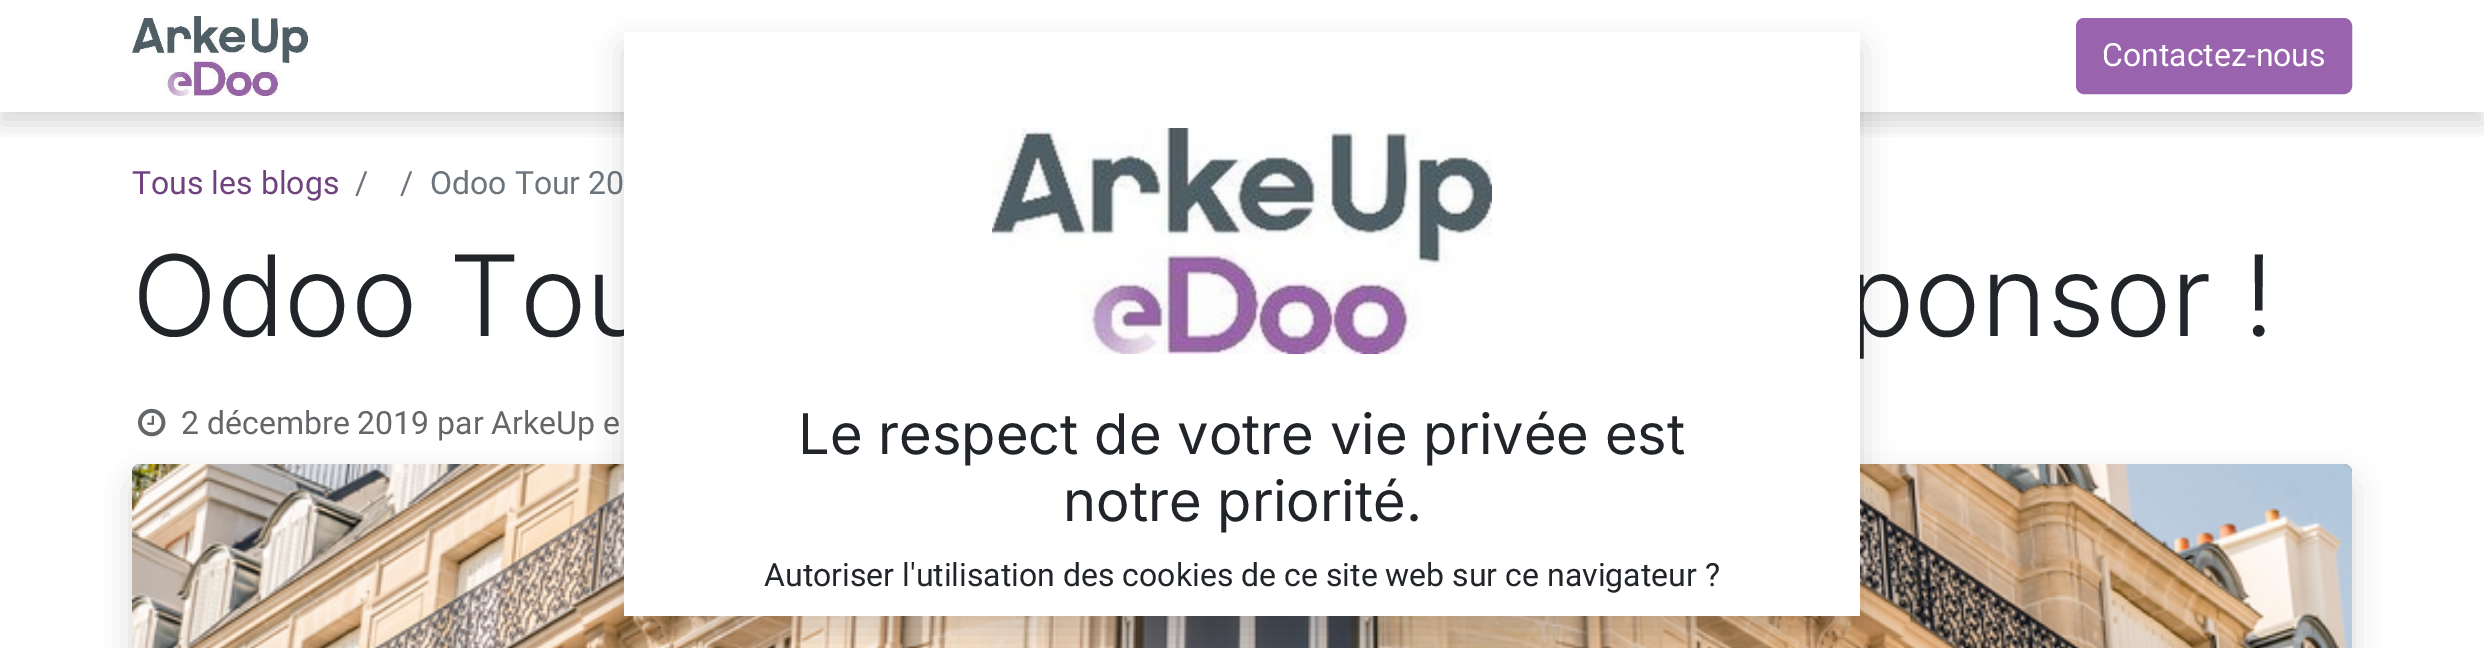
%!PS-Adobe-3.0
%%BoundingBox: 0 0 2484 648
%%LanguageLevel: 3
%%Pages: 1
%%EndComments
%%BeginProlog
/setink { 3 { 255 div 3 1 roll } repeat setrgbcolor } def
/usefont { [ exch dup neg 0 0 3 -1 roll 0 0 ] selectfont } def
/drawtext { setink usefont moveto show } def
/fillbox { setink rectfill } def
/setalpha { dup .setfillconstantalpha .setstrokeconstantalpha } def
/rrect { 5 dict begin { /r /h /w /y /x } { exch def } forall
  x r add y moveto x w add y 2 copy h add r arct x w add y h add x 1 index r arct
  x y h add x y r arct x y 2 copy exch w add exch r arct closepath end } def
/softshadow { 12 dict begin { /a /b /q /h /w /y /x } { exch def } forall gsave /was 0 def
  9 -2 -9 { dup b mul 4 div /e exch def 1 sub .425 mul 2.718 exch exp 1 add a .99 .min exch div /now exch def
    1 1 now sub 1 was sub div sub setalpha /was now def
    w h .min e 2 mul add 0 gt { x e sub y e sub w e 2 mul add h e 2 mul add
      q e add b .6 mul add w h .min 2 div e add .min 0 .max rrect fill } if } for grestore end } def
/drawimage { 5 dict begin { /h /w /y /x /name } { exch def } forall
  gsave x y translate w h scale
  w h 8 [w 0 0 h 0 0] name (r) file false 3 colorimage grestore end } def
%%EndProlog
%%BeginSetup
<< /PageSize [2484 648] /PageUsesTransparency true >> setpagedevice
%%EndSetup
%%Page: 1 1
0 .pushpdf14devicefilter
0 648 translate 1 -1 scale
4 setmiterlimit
0 0 2484 648 255 255 255 fillbox
gsave
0 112 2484 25 rectclip
0 0 0 setink
0 12 2484 112 0 12 0.15 softshadow
grestore
(assets/img1.rgb) 132 16 176 80 drawimage
153 99 173 setink
2077 19 274 74 7 rrect gsave fill grestore
2 setlinewidth
stroke
(Contactez-nous) 2102 66 /Roboto-Regular 32 255 255 255 drawtext
(Tous les blogs) 132 194 /Roboto-Regular 32 112 67 128 drawtext
(/) 355 194 /Roboto-Regular 32 108 117 125 drawtext
(/) 400 194 /Roboto-Regular 32 108 117 125 drawtext
(Odoo Tour 20) 430 194 /Roboto-Regular 32 108 117 125 drawtext
(Odoo Tou) 132 336 /Inter-Light 112 33 37 41 drawtext
(ponsor !) 1847 336 /Inter-Light 112 33 37 41 drawtext
(assets/img2.rgb) 138 408 28 29 drawimage
(2 décembre 2019 par ArkeUp e) 181 434 /Roboto-Regular 32 100 102 105 drawtext
0 0 0 setink
132 480 2220 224 8 16 0.15 softshadow
(assets/img3.rgb) 132 464 2220 184 drawimage
624 48 1236 584 0 16 0.15 softshadow
624 32 1236 584 255 255 255 fillbox
(assets/img4.rgb) 992 128 500 226 drawimage
(Le respect de votre vie privée est) 798 454 /Inter-Regular 56 33 37 41 drawtext
(notre priorité.) 1063 521 /Inter-Regular 56 33 37 41 drawtext
(Autoriser l'utilisation des cookies de ce site web sur ce navigateur ?) 764 586 /Roboto-Regular 32 33 37 41 drawtext
.poppdf14devicefilter showpage
%%EOF
